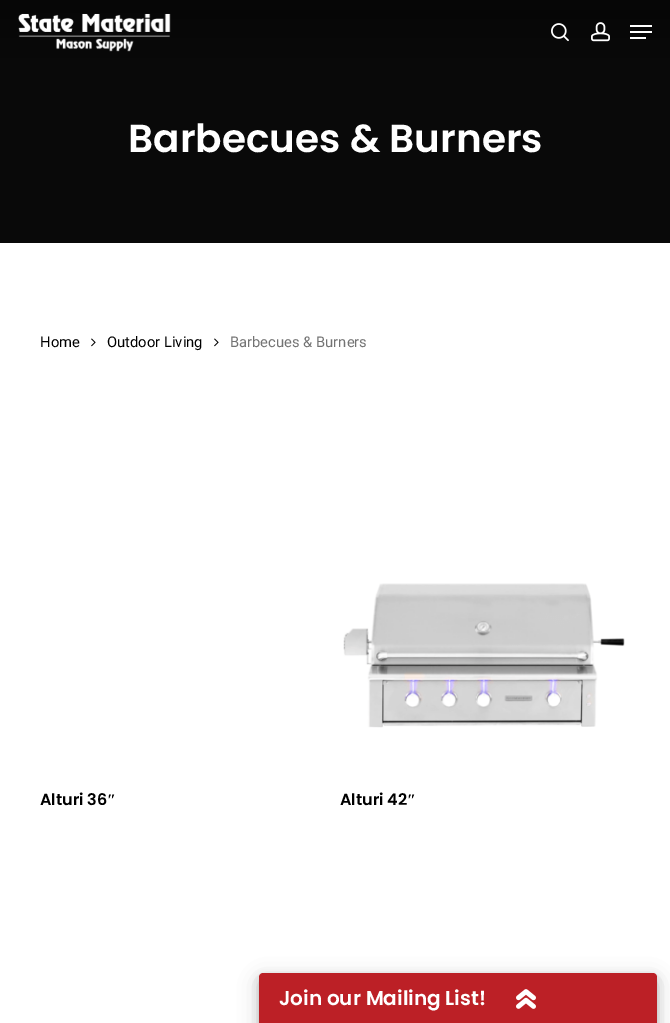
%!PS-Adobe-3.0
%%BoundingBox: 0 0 670 1023
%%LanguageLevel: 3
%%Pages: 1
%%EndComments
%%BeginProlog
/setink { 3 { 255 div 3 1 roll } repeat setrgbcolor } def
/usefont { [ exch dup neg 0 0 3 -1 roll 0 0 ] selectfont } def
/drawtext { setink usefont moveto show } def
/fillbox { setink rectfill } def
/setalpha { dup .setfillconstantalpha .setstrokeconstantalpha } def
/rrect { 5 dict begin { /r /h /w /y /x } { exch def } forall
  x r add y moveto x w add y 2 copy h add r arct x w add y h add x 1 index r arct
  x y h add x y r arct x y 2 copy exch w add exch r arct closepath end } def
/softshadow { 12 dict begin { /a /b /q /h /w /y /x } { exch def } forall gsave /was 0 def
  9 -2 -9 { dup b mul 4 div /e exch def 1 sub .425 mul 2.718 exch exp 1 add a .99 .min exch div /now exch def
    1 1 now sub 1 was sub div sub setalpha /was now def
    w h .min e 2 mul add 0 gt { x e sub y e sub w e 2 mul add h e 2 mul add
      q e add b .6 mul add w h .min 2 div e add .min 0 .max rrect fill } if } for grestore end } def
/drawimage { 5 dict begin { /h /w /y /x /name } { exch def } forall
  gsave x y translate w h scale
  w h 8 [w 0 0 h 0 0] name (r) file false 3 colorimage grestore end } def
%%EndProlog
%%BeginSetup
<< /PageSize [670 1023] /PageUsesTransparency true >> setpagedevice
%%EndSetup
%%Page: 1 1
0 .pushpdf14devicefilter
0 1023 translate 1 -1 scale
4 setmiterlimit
0 0 670 1023 255 255 255 fillbox
gsave 0 0 moveto 670 0 lineto 670 77 lineto 0 77 lineto closepath clip newpath
<< /ShadingType 2 /ColorSpace /DeviceRGB /Coords [335 77 335 0] /Extend [true true] /Function << /FunctionType 3 /Domain [0 1] /Functions [<< /FunctionType 2 /Domain [0 1] /C0 [0.035 0.035 0.035] /C1 [0.035 0.035 0.035] /N 1 >> << /FunctionType 2 /Domain [0 1] /C0 [0.035 0.035 0.035] /C1 [0.027 0.027 0.027] /N 1 >> << /FunctionType 2 /Domain [0 1] /C0 [0.027 0.027 0.027] /C1 [0.024 0.024 0.024] /N 1 >>] /Bounds [0.16 0.75] /Encode [0 1 0 1 0 1] >> >> shfill grestore
(assets/img1.rgb) 18 13 153 39 drawimage
(assets/img2.rgb) 551 23 18 19 drawimage
(assets/img3.rgb) 591 22 19 20 drawimage
630 25 22 2 255 255 255 fillbox
630 37 16 2 255 255 255 fillbox
630 31 22 2 255 255 255 fillbox
0 77 670 166 9 9 9 fillbox
(Barbecues & Burners) 128 152 /Poppins-SemiBold 39 255 255 255 drawtext
(Home) 40 347 /Roboto-Regular 14.75 0 0 0 drawtext
(assets/img4.rgb) 91 338 5 9 drawimage
(Outdoor Living) 107 347 /Roboto-Regular 14.75 0 0 0 drawtext
(assets/img4.rgb) 214 338 5 9 drawimage
(Barbecues & Burners) 230 347 /Roboto-Regular 14.75 115 115 115 drawtext
(Alturi 36) 40 805 /Poppins-SemiBold 16 0 0 0 drawtext
(″) 107 805 /LiberationSerif-Bold 16 0 0 0 drawtext
(assets/img5.rgb) 343 583 282 145 drawimage
(Alturi 42) 340 805 /Poppins-SemiBold 16 0 0 0 drawtext
(″) 407 805 /LiberationSerif-Bold 16 0 0 0 drawtext
259 979 398 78 4 10 0.2 softshadow
259 976 398 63 4 4 0.15 softshadow
188 32 38 setink
263 973 moveto 653 973 lineto 655 973 657 975 657 977 curveto 657 1023 lineto 259 1023 lineto 259 977 lineto 259 975 261 973 263 973 curveto closepath fill
(Join our Mailing List!) 279 1005 /Poppins-SemiBold 20 255 255 255 drawtext
(assets/img6.rgb) 516 989 20 20 drawimage
.poppdf14devicefilter showpage
%%EOF
